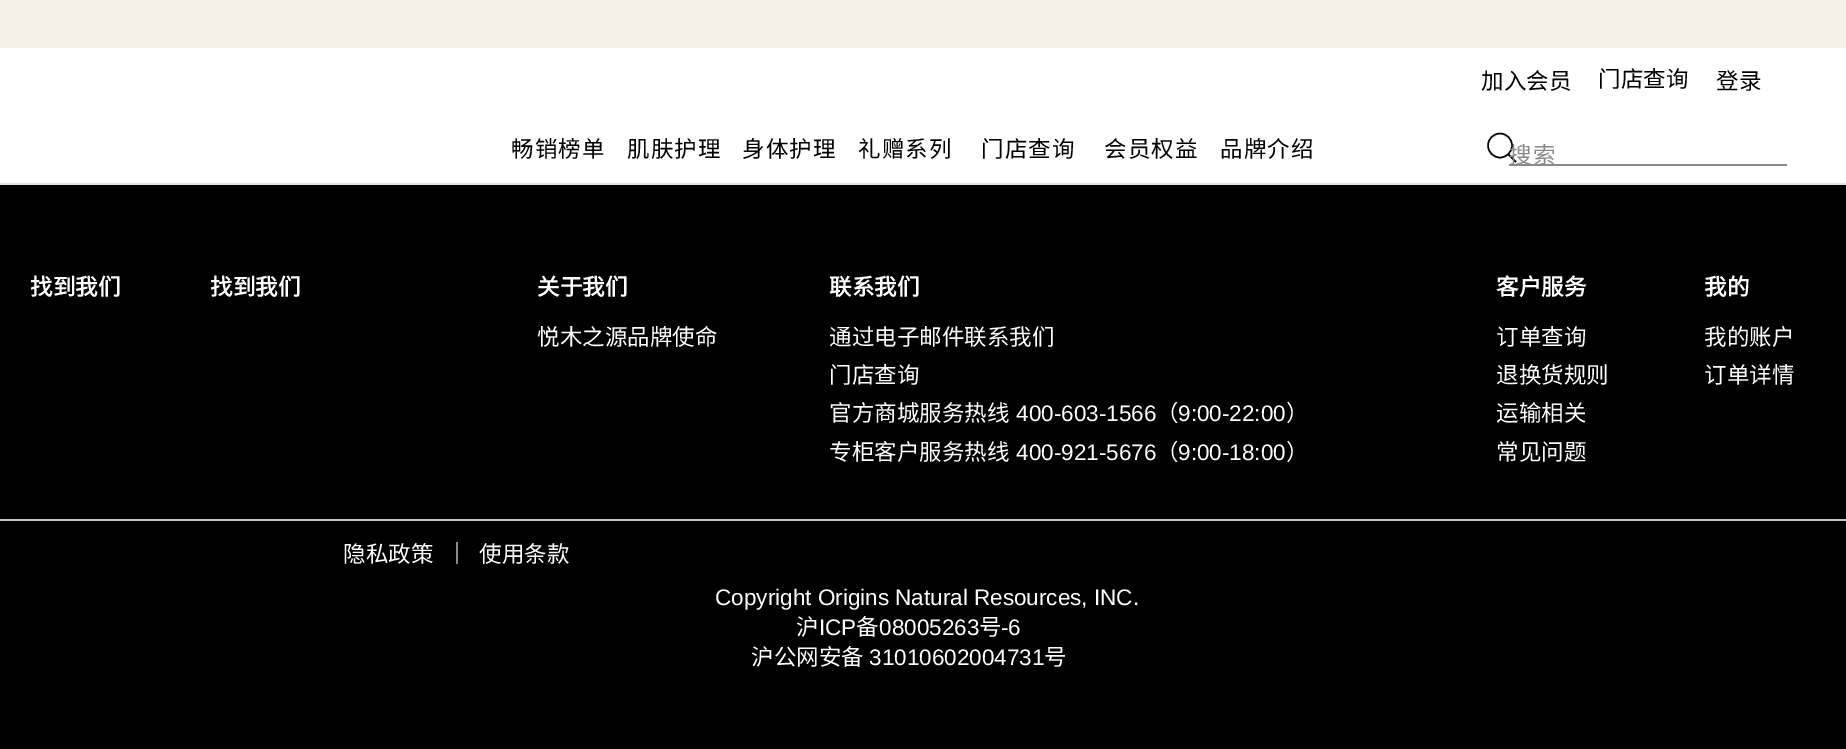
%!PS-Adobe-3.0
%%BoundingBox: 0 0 1846 749
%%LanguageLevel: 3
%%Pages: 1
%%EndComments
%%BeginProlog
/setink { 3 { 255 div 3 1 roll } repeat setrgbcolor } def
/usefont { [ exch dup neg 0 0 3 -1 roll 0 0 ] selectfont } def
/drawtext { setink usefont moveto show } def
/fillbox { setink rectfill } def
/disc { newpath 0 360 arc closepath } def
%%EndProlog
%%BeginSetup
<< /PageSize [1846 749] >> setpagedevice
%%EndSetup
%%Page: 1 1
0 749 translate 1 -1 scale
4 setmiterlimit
0 0 1846 749 0 0 0 fillbox
0 48 1846 135 255 255 255 fillbox
0 0 1846 48 245 239 228 fillbox
0 183 1846 2 224 224 224 fillbox
/NotoSansCJKSC-Regular 22.5 usefont
0 0 0 setink
511 157 moveto 1 0 (畅销榜单) ashow
627 157 moveto 1 0 (肌肤护理) ashow
742 157 moveto 1 0 (身体护理) ashow
858 157 moveto 1 0 (礼赠系列) ashow
981 157 moveto 1 0 (门店查询) ashow
1104 157 moveto 1 0 (会员权益) ashow
1220 157 moveto 1 0 (品牌介绍) ashow
(加入会员) 1481 89 /NotoSansCJKSC-Regular 22.5 0 0 0 drawtext
(门店查询) 1598 87 /NotoSansCJKSC-Regular 22.5 0 0 0 drawtext
(登录) 1716 89 /NotoSansCJKSC-Regular 22.5 0 0 0 drawtext
1509 164 278 2 137 137 137 fillbox
0 0 0 setink
1.5 setlinewidth
1500 145.5 12 disc stroke
1508.5 154.5 moveto 1516 162 lineto stroke
137 137 137 setink
1509 163 moveto 1 0 (搜索) ashow
(找到我们) 30 295 /NotoSansCJKSC-Bold 22.5 255 255 255 drawtext
(找到我们) 210 295 /NotoSansCJKSC-Bold 22.5 255 255 255 drawtext
(关于我们) 537 295 /NotoSansCJKSC-Bold 22.5 255 255 255 drawtext
(悦木之源品牌使命) 537 345 /NotoSansCJKSC-Regular 22.5 255 255 255 drawtext
(联系我们) 829 295 /NotoSansCJKSC-Bold 22.5 255 255 255 drawtext
(通过电子邮件联系我们) 829 345 /NotoSansCJKSC-Regular 22.5 255 255 255 drawtext
(门店查询) 829 383 /NotoSansCJKSC-Regular 22.5 255 255 255 drawtext
(官方商城服务热线) 829 421 /NotoSansCJKSC-Regular 22.5 255 255 255 drawtext
(400-603-1566) 1016 421 /LiberationSans-Regular 22.5 255 255 255 drawtext
(（) 1156 421 /NotoSansCJKSC-Regular 22.5 255 255 255 drawtext
(9:00-22:00) 1178 421 /LiberationSans-Regular 22.5 255 255 255 drawtext
(）) 1286 421 /NotoSansCJKSC-Regular 22.5 255 255 255 drawtext
(专柜客户服务热线) 829 460 /NotoSansCJKSC-Regular 22.5 255 255 255 drawtext
(400-921-5676) 1016 460 /LiberationSans-Regular 22.5 255 255 255 drawtext
(（) 1156 460 /NotoSansCJKSC-Regular 22.5 255 255 255 drawtext
(9:00-18:00) 1178 460 /LiberationSans-Regular 22.5 255 255 255 drawtext
(）) 1286 460 /NotoSansCJKSC-Regular 22.5 255 255 255 drawtext
(客户服务) 1496 295 /NotoSansCJKSC-Bold 22.5 255 255 255 drawtext
(订单查询) 1496 345 /NotoSansCJKSC-Regular 22.5 255 255 255 drawtext
(退换货规则) 1496 383 /NotoSansCJKSC-Regular 22.5 255 255 255 drawtext
(运输相关) 1496 421 /NotoSansCJKSC-Regular 22.5 255 255 255 drawtext
(常见问题) 1496 460 /NotoSansCJKSC-Regular 22.5 255 255 255 drawtext
(我的) 1704 295 /NotoSansCJKSC-Bold 22.5 255 255 255 drawtext
(我的账户) 1704 345 /NotoSansCJKSC-Regular 22.5 255 255 255 drawtext
(订单详情) 1704 383 /NotoSansCJKSC-Regular 22.5 255 255 255 drawtext
0 519 1846 2 197 197 197 fillbox
456 542 2 22 137 137 137 fillbox
(隐私政策) 343 562 /NotoSansCJKSC-Regular 22.5 255 255 255 drawtext
(使用条款) 479 562 /NotoSansCJKSC-Regular 22.5 255 255 255 drawtext
(Copyright Origins Natural Resources, INC.) 715 605 /LiberationSans-Regular 22.5 255 255 255 drawtext
(沪) 796 635 /NotoSansCJKSC-Regular 22.5 255 255 255 drawtext
(ICP) 819 635 /LiberationSans-Regular 22.5 255 255 255 drawtext
(备) 856 635 /NotoSansCJKSC-Regular 22.5 255 255 255 drawtext
(08005263) 879 635 /LiberationSans-Regular 22.5 255 255 255 drawtext
(号) 979 635 /NotoSansCJKSC-Regular 22.5 255 255 255 drawtext
(-6) 1001 635 /LiberationSans-Regular 22.5 255 255 255 drawtext
(沪公网安备) 751 665 /NotoSansCJKSC-Regular 22.5 255 255 255 drawtext
(31010602004731) 869 665 /LiberationSans-Regular 22.5 255 255 255 drawtext
(号) 1044 665 /NotoSansCJKSC-Regular 22.5 255 255 255 drawtext
showpage
%%EOF
